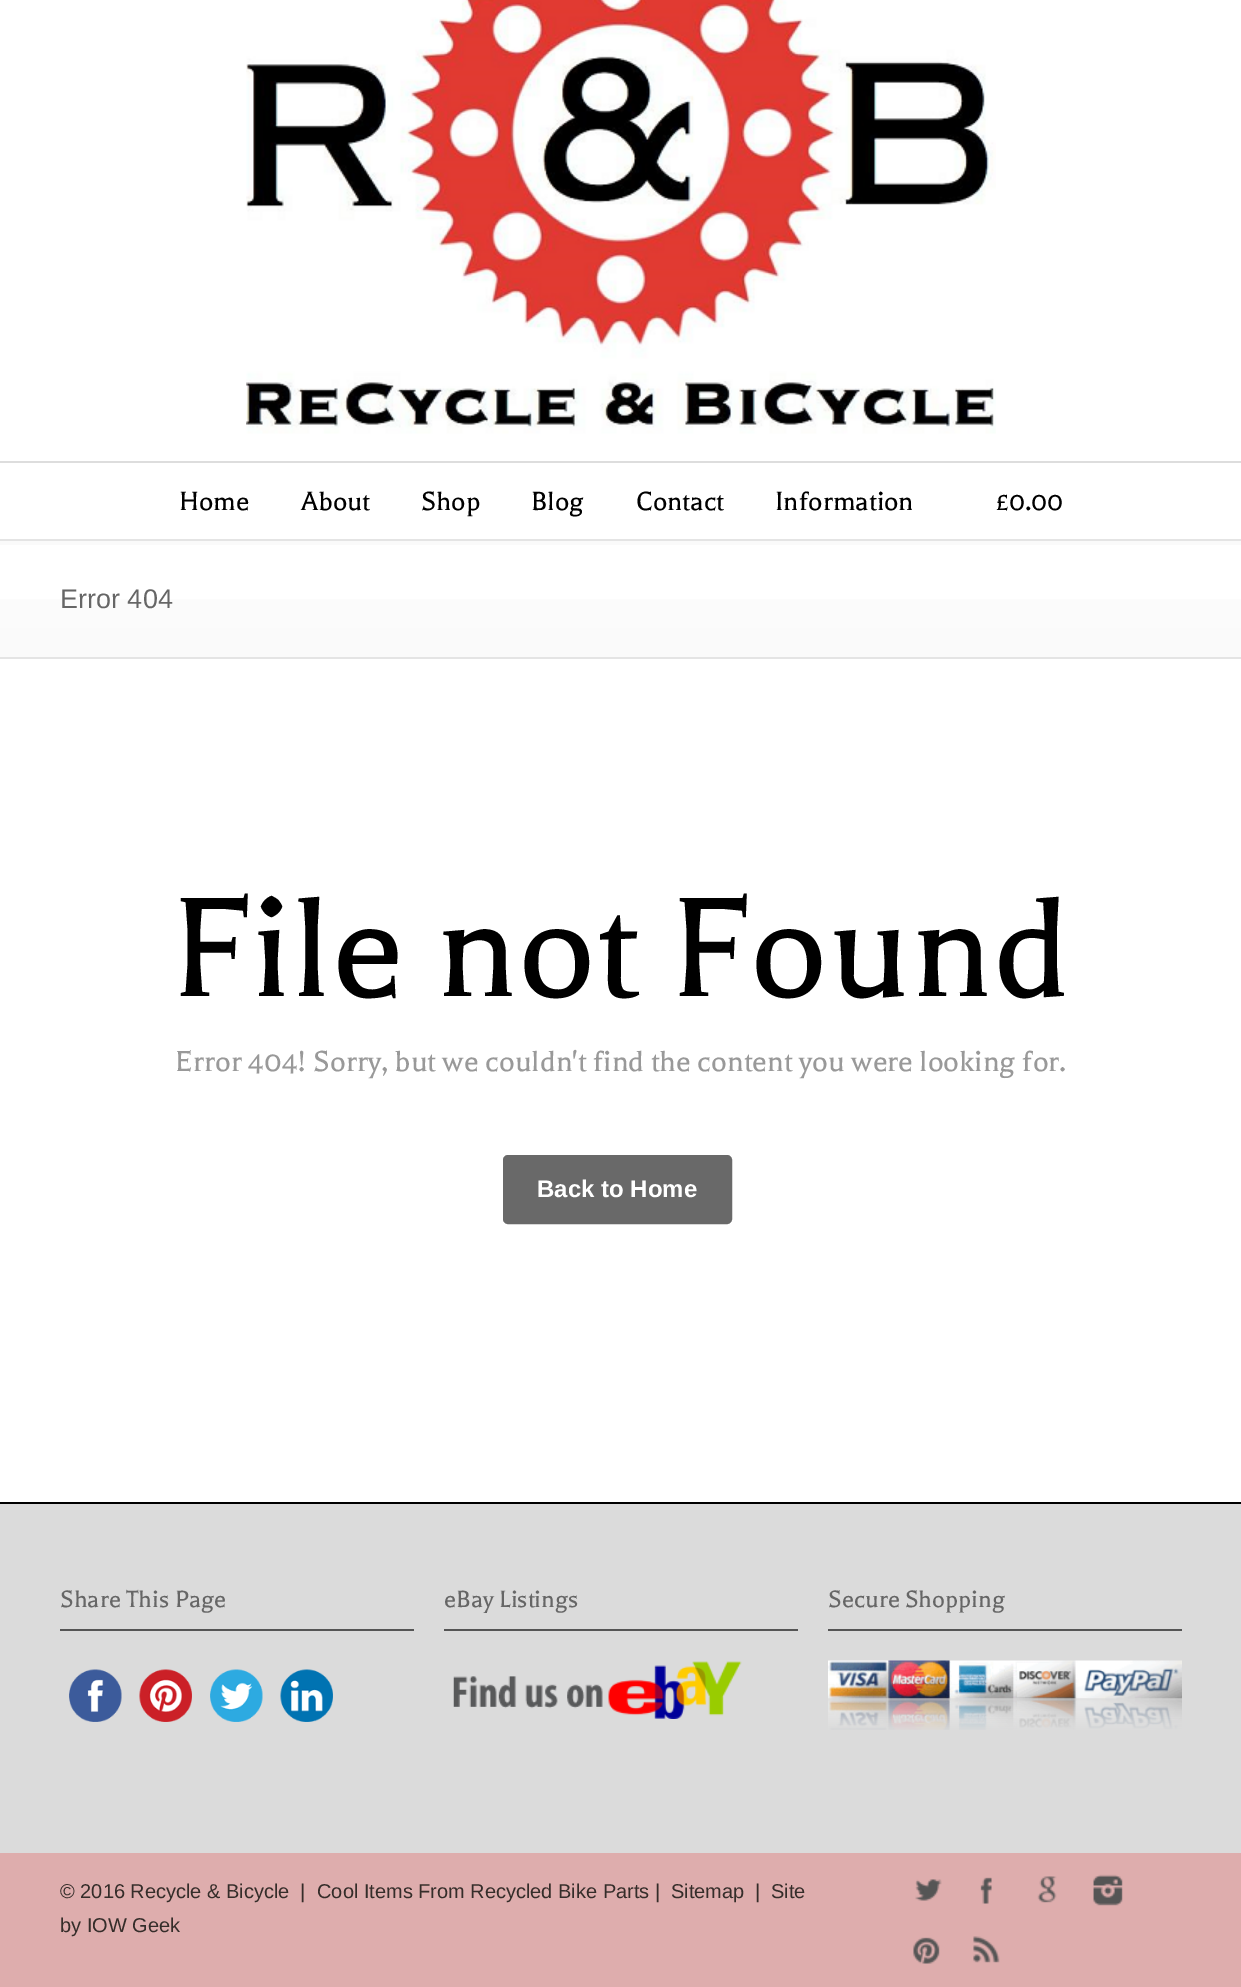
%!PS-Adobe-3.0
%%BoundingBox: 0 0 1241 1987
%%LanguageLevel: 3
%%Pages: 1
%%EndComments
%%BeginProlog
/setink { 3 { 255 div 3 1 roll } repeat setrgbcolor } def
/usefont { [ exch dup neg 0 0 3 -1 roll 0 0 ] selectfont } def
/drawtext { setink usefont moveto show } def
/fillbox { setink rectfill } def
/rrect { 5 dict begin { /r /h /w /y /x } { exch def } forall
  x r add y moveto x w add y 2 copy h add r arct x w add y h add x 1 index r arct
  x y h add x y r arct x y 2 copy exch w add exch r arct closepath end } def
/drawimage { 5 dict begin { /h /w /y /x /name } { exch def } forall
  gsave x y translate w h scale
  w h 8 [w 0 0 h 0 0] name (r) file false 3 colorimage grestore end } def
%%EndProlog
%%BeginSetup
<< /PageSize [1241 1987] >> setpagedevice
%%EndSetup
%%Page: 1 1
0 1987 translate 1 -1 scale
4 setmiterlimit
0 0 1241 1987 255 255 255 fillbox
(assets/img1.rgb) 246 0 750 434 drawimage
0 461 1241 2 221 221 221 fillbox
(Home) 179 510 /Balthazar-Regular 30 0 0 0 drawtext
(About) 301 510 /Balthazar-Regular 30 0 0 0 drawtext
(Shop) 421 510 /Balthazar-Regular 30 0 0 0 drawtext
(Blog) 531 510 /Balthazar-Regular 30 0 0 0 drawtext
(Contact) 636 510 /Balthazar-Regular 30 0 0 0 drawtext
(Information) 775 510 /Balthazar-Regular 30 0 0 0 drawtext
(£0.00) 996 510 /Balthazar-Regular 30 0 0 0 drawtext
gsave 0 599 moveto 1241 599 lineto 1241 657 lineto 0 657 lineto closepath clip newpath
<< /ShadingType 2 /ColorSpace /DeviceRGB /Coords [621 657 621 540] /Extend [true true] /Function << /FunctionType 2 /Domain [0 1] /C0 [0.98 0.98 0.98] /C1 [1 1 1] /N 1 >> >> shfill grestore
0 541 1241 4 250 250 250 fillbox
0 539 1241 2 228 228 228 fillbox
0 657 1241 2 228 228 228 fillbox
(Error 404) 60 608 /LiberationSans-Regular 27 102 102 102 drawtext
(File not Found) 171 996 /Balthazar-Regular 162 0 0 0 drawtext
(Error 404! Sorry, but we couldn't find the content you were looking for.) 175 1071 /Balthazar-Regular 33 153 153 153 drawtext
105 105 105 setink
504 1156 227 67 4 rrect gsave fill grestore
2 setlinewidth
stroke
(Back to Home) 537 1197 /LiberationSans-Bold 24 255 255 255 drawtext
0 1504 1241 349 219 219 219 fillbox
0 1502 1241 2 0 0 0 fillbox
60 1629 354 2 85 85 85 fillbox
(Share This Page) 60 1607 /Balthazar-Regular 27 102 102 102 drawtext
(assets/img2.rgb) 69 1669 53 53 drawimage
(assets/img3.rgb) 139 1669 53 53 drawimage
(assets/img4.rgb) 210 1669 53 53 drawimage
(assets/img5.rgb) 280 1669 53 53 drawimage
444 1629 354 2 85 85 85 fillbox
(eBay Listings) 444 1607 /Balthazar-Regular 27 102 102 102 drawtext
(assets/img6.rgb) 453 1661 289 58 drawimage
828 1629 354 2 85 85 85 fillbox
(Secure Shopping) 828 1607 /Balthazar-Regular 27 102 102 102 drawtext
(assets/img7.rgb) 828 1660 354 70 drawimage
0 1853 1241 134 222 173 173 fillbox
(© 2016 Recycle & Bicycle  |) 60 1898 /LiberationSans-Regular 20 53 45 42 drawtext
(Cool Items From Recycled Bike Parts |) 317 1898 /LiberationSans-Regular 20 53 45 42 drawtext
(Sitemap) 671 1898 /LiberationSans-Regular 20 53 45 42 drawtext
(|) 755 1898 /LiberationSans-Regular 20 53 45 42 drawtext
(Site) 771 1898 /LiberationSans-Regular 20 53 45 42 drawtext
(by IOW Geek) 60 1932 /LiberationSans-Regular 20 53 45 42 drawtext
(assets/img8.rgb) 915 1879 27 22 drawimage
(assets/img9.rgb) 980 1877 12 27 drawimage
(assets/img10.rgb) 1037 1876 20 27 drawimage
(assets/img11.rgb) 1093 1874 30 32 drawimage
(assets/img12.rgb) 913 1937 27 27 drawimage
(assets/img13.rgb) 973 1936 27 27 drawimage
showpage
%%EOF
